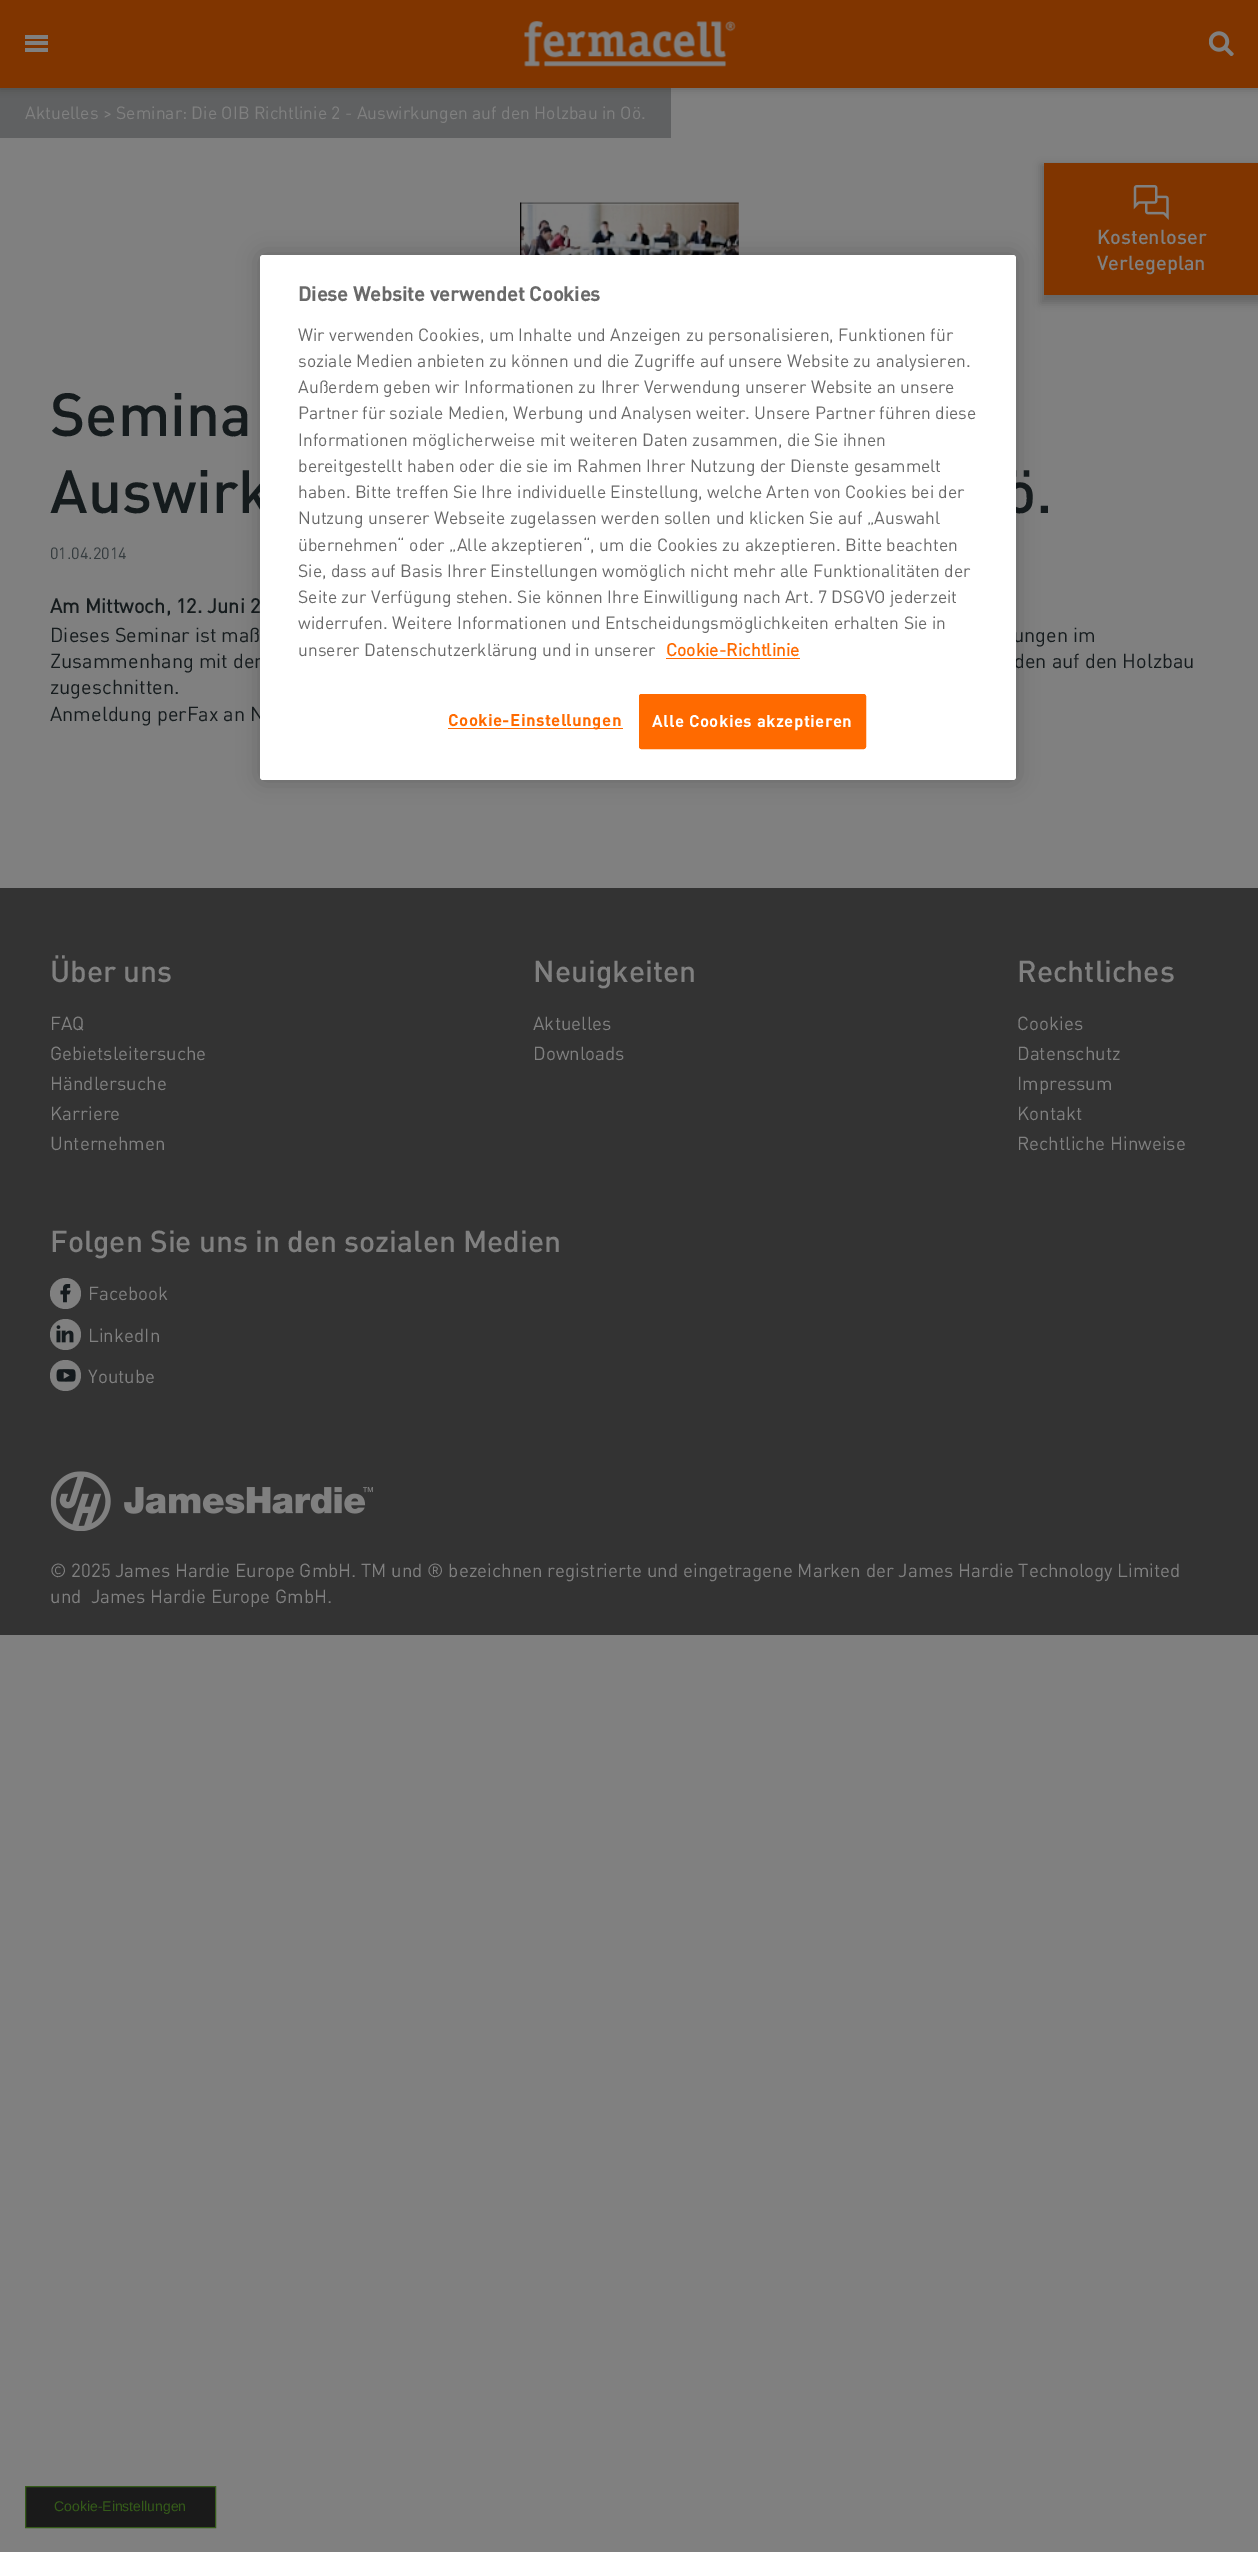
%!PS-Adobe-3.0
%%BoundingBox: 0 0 1258 2552
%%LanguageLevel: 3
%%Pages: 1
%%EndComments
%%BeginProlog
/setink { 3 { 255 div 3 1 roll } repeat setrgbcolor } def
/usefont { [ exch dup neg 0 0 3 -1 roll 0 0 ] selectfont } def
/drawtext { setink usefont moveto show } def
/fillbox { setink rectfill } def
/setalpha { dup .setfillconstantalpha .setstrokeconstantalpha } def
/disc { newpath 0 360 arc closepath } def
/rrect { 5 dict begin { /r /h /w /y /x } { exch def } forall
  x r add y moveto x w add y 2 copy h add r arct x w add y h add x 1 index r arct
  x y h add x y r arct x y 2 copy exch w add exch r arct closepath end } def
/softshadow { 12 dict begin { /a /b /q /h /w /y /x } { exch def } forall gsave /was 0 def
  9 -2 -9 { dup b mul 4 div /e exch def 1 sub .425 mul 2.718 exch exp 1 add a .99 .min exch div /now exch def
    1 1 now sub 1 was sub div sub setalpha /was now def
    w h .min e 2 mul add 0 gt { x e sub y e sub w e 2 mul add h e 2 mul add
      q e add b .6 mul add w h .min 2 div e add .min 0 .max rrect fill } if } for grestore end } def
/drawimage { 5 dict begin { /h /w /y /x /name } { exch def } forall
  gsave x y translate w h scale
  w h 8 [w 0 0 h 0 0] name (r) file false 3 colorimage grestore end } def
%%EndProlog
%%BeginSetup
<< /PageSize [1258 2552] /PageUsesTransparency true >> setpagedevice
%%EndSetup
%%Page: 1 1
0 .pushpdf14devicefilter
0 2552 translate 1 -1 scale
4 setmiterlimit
0 0 1258 2552 128 128 128 fillbox
0 88 671 50 96 97 98 fillbox
0 0 0 setink
0 1 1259 88 0 4 0.2 softshadow
0 0 1258 88 128 53 0 fillbox
25 35 23 4 128 128 128 fillbox
25 41 23 4 128 128 128 fillbox
25 48 23 4 128 128 128 fillbox
(assets/img1.rgb) 524 21 212 46 drawimage
(assets/img2.rgb) 1209 31 25 25 drawimage
(Aktuelles > Seminar: Die OIB Richtlinie 2 - Auswirkungen auf den Holzbau in Oö.) 25 119 /DIN-Regular 17.5 128 128 128 drawtext
0 0 0 setink
1041 165 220 138 0 4 0.2 softshadow
1044 163 214 132 128 53 0 fillbox
(assets/img3.rgb) 1133 185 36 35 drawimage
(Kostenloser) 1097 244 /DIN-Medium 20 128 128 128 drawtext
(Verlegeplan) 1097 270 /DIN-Medium 20 128 128 128 drawtext
(assets/img4.rgb) 520 202 219 53 drawimage
(Semina) 50 436 /DIN-Medium 60 21 27 29 drawtext
(Auswirk) 50 513 /DIN-Medium 60 21 27 29 drawtext
(ö.) 1004 513 /DIN-Medium 60 21 27 29 drawtext
(01.04.2014) 50 559 /DIN-Regular 16.25 53 60 63 drawtext
(Am Mittwoch, 12. Juni 2) 50 613 /DIN-Bold 20 21 27 29 drawtext
(Dieses Seminar ist maß) 50 642 /DIN-Regular 20 21 27 29 drawtext
(ungen im) 1013 642 /DIN-Regular 20 21 27 29 drawtext
(Zusammenhang mit den) 50 668 /DIN-Regular 20 21 27 29 drawtext
(den auf den Holzbau) 1014 668 /DIN-Regular 20 21 27 29 drawtext
(zugeschnitten.) 50 694 /DIN-Regular 20 21 27 29 drawtext
(Anmeldung perFax an N) 50 721 /DIN-Regular 20 21 27 29 drawtext
0 888 1258 747 51 51 51 fillbox
(Über uns) 50 982 /DIN-Medium 30 128 128 128 drawtext
(FAQ) 50 1030 /DIN-Regular 18.75 128 128 128 drawtext
(Gebietsleitersuche) 50 1060 /DIN-Regular 18.75 128 128 128 drawtext
(Händlersuche) 50 1090 /DIN-Regular 18.75 128 128 128 drawtext
(Karriere) 50 1120 /DIN-Regular 18.75 128 128 128 drawtext
(Unternehmen) 50 1150 /DIN-Regular 18.75 128 128 128 drawtext
(Neuigkeiten) 533 982 /DIN-Medium 30 128 128 128 drawtext
(Aktuelles) 533 1030 /DIN-Regular 18.75 128 128 128 drawtext
(Downloads) 533 1060 /DIN-Regular 18.75 128 128 128 drawtext
(Rechtliches) 1017 982 /DIN-Medium 30 128 128 128 drawtext
(Cookies) 1017 1030 /DIN-Regular 18.75 128 128 128 drawtext
(Datenschutz) 1017 1060 /DIN-Regular 18.75 128 128 128 drawtext
(Impressum) 1017 1090 /DIN-Regular 18.75 128 128 128 drawtext
(Kontakt) 1017 1120 /DIN-Regular 18.75 128 128 128 drawtext
(Rechtliche Hinweise) 1017 1150 /DIN-Regular 18.75 128 128 128 drawtext
(Folgen Sie uns in den sozialen Medien) 50 1252 /DIN-Medium 30 128 128 128 drawtext
65.5 1293.5 15.5 disc fill
(assets/img5.rgb) 60 1284 11 19 drawimage
(Facebook) 88 1300 /DIN-Regular 18.75 128 128 128 drawtext
65.5 1334.5 15.5 disc fill
(assets/img6.rgb) 56 1325 18 18 drawimage
(LinkedIn) 88 1342 /DIN-Regular 18.75 128 128 128 drawtext
65.5 1375.5 15.5 disc fill
(assets/img7.rgb) 56 1369 20 13 drawimage
(Youtube) 88 1383 /DIN-Regular 18.75 128 128 128 drawtext
(assets/img8.rgb) 50 1471 323 60 drawimage
(© 2025 James Hardie Europe GmbH. TM und ® bezeichnen registrierte und eingetragene Marken der James Hardie Technology Limited) 50 1577 /DIN-Regular 18.75 128 128 128 drawtext
(und  James Hardie Europe GmbH.) 50 1603 /DIN-Regular 18.75 128 128 128 drawtext
0 0 0 setink
260 255 756 525 3 11 0.2 softshadow
255 255 255 setink
260 255 756 525 3 rrect fill
(Diese Website verwendet Cookies) 298 301 /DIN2-Bold 20 105 105 105 drawtext
(Wir verwenden Cookies, um Inhalte und Anzeigen zu personalisieren, Funktionen für) 298 341 /DIN-Regular 17.5 105 105 105 drawtext
(soziale Medien anbieten zu können und die Zugriffe auf unsere Website zu analysieren.) 298 367 /DIN-Regular 17.5 105 105 105 drawtext
(Außerdem geben wir Informationen zu Ihrer Verwendung unserer Website an unsere) 298 393 /DIN-Regular 17.5 105 105 105 drawtext
(Partner für soziale Medien, Werbung und Analysen weiter. Unsere Partner führen diese) 298 419 /DIN-Regular 17.5 105 105 105 drawtext
(Informationen möglicherweise mit weiteren Daten zusammen, die Sie ihnen) 298 446 /DIN-Regular 17.5 105 105 105 drawtext
(bereitgestellt haben oder die sie im Rahmen Ihrer Nutzung der Dienste gesammelt) 298 472 /DIN-Regular 17.5 105 105 105 drawtext
(haben. Bitte treffen Sie Ihre individuelle Einstellung, welche Arten von Cookies bei der) 298 498 /DIN-Regular 17.5 105 105 105 drawtext
(Nutzung unserer Webseite zugelassen werden sollen und klicken Sie auf „Auswahl) 298 524 /DIN-Regular 17.5 105 105 105 drawtext
(übernehmen“ oder „Alle akzeptieren“, um die Cookies zu akzeptieren. Bitte beachten) 298 551 /DIN-Regular 17.5 105 105 105 drawtext
(Sie, dass auf Basis Ihrer Einstellungen womöglich nicht mehr alle Funktionalitäten der) 298 577 /DIN-Regular 17.5 105 105 105 drawtext
(Seite zur Verfügung stehen. Sie können Ihre Einwilligung nach Art. 7 DSGVO jederzeit) 298 603 /DIN-Regular 17.5 105 105 105 drawtext
(widerrufen. Weitere Informationen und Entscheidungsmöglichkeiten erhalten Sie in) 298 629 /DIN-Regular 17.5 105 105 105 drawtext
(unserer Datenschutzerklärung und in unserer) 298 656 /DIN-Regular 17.5 105 105 105 drawtext
(Cookie-Richtlinie) 666 656 /DIN-Bold 17.5 255 106 0 drawtext
666 658 134 1 255 106 0 fillbox
448 728 175 1 255 106 0 fillbox
/DIN2-Bold 16.25 usefont
448 726 moveto 0.8 0 (Cookie-Einstellungen) ashow
639.5 694.5 226 54 2 rrect gsave fill grestore
stroke
255 255 255 setink
652 727 moveto 0.8 0 (Alle Cookies akzeptieren) ashow
26 26 26 setink
25.5 2486.5 moveto 215.5 2486.5 lineto 215.5 2527.5 lineto 25.5 2527.5 lineto closepath gsave fill grestore
52 91 25 setink
stroke
(Cookie-Einstellungen) 54 2511 /LiberationSans-Regular 14 52 91 25 drawtext
.poppdf14devicefilter showpage
%%EOF
